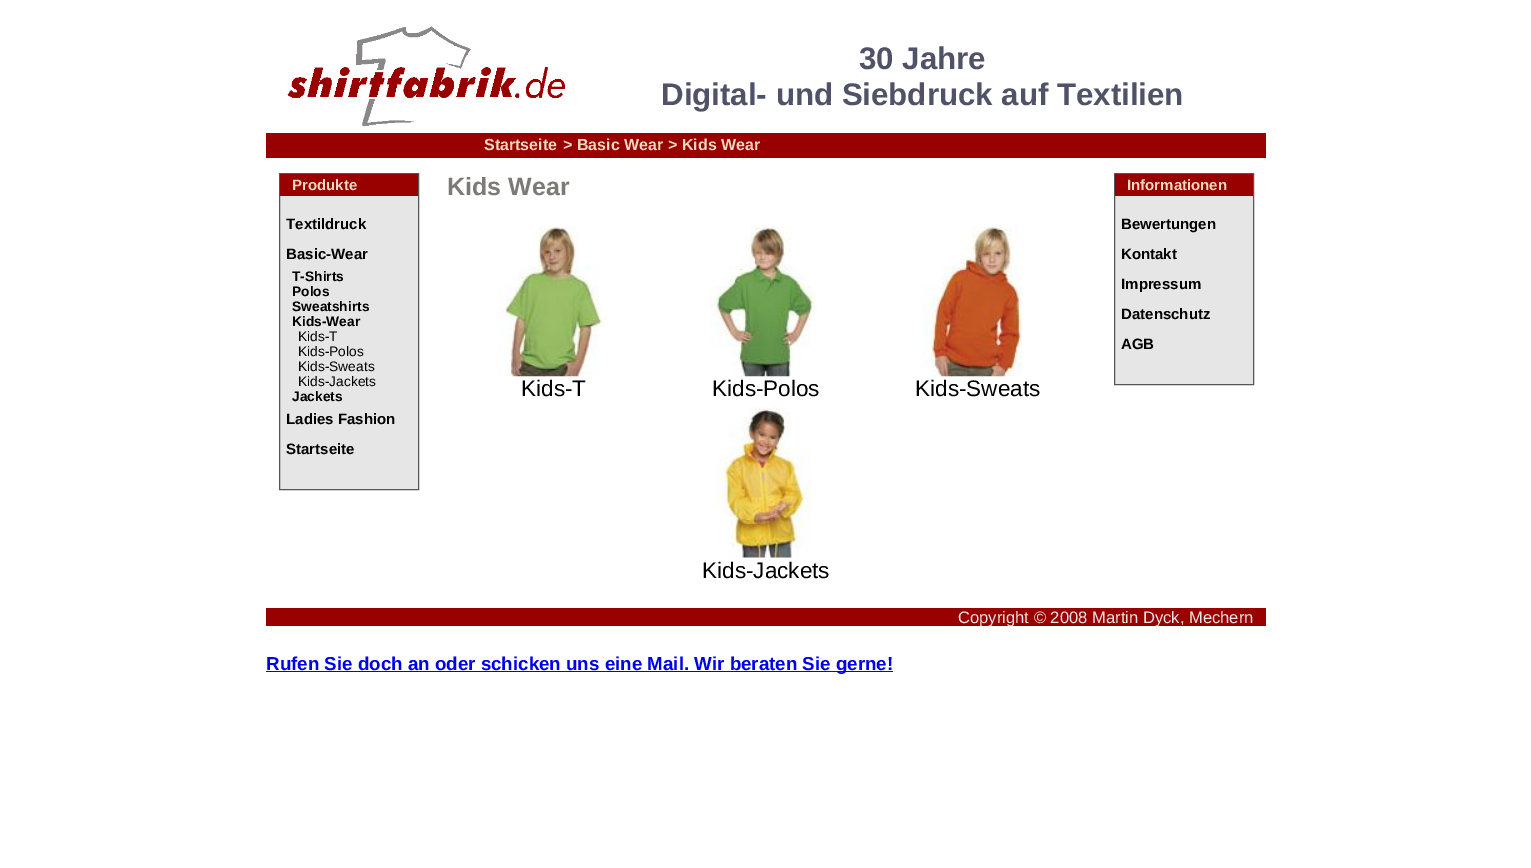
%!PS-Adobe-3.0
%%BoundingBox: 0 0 1531 868
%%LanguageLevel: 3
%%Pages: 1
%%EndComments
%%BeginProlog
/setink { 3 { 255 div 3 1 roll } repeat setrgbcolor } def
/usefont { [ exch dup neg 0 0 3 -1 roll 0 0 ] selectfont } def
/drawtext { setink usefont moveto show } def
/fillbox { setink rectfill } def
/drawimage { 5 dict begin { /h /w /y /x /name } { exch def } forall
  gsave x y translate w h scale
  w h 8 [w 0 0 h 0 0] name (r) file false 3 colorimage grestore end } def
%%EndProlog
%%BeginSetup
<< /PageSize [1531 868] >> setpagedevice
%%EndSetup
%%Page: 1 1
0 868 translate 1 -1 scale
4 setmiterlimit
0 0 1531 868 255 255 255 fillbox
(assets/img1.rgb) 287 26 278 101 drawimage
(30 Jahre) 859 69 /LiberationSans-Bold 31.25 80 83 103 drawtext
(Digital- und Siebdruck auf Textilien) 661 105 /LiberationSans-Bold 31.25 80 83 103 drawtext
266 133 1000 25 153 0 0 fillbox
(Startseite) 484 150 /LiberationSans-Bold 16 234 218 194 drawtext
(> Basic Wear) 563 150 /LiberationSans-Bold 16 234 218 194 drawtext
(> Kids Wear) 668 150 /LiberationSans-Bold 16 234 218 194 drawtext
280 196 138 293 230 230 230 fillbox
85 86 88 setink
279.5 173.5 139 316 rectstroke
280 174 138 22 153 0 0 fillbox
(Produkte) 292 190 /LiberationSans-Bold 15 234 218 194 drawtext
(Textildruck) 286 229 /LiberationSans-Bold 15 0 0 0 drawtext
(Basic-Wear) 286 259 /LiberationSans-Bold 15 0 0 0 drawtext
(T-Shirts) 292 281 /LiberationSans-Bold 13.75 0 0 0 drawtext
(Polos) 292 296 /LiberationSans-Bold 13.75 0 0 0 drawtext
(Sweatshirts) 292 311 /LiberationSans-Bold 13.75 0 0 0 drawtext
(Kids-Wear) 292 326 /LiberationSans-Bold 13.75 0 0 0 drawtext
(Kids-T) 298 341 /LiberationSans-Regular 13.75 0 0 0 drawtext
(Kids-Polos) 298 356 /LiberationSans-Regular 13.75 0 0 0 drawtext
(Kids-Sweats) 298 371 /LiberationSans-Regular 13.75 0 0 0 drawtext
(Kids-Jackets) 298 386 /LiberationSans-Regular 13.75 0 0 0 drawtext
(Jackets) 292 401 /LiberationSans-Bold 13.75 0 0 0 drawtext
(Ladies Fashion) 286 424 /LiberationSans-Bold 15 0 0 0 drawtext
(Startseite) 286 454 /LiberationSans-Bold 15 0 0 0 drawtext
(Kids Wear) 447 195 /LiberationSans-Bold 25 123 122 119 drawtext
(assets/img2.rgb) 498 226 111 151 drawimage
(Kids-T) 521 396 /LiberationSans-Regular 22.5 0 0 0 drawtext
(assets/img3.rgb) 709 226 108 151 drawimage
(Kids-Polos) 712 396 /LiberationSans-Regular 22.5 0 0 0 drawtext
(assets/img4.rgb) 922 226 101 151 drawimage
(Kids-Sweats) 915 396 /LiberationSans-Regular 22.5 0 0 0 drawtext
(assets/img5.rgb) 714 407 97 151 drawimage
(Kids-Jackets) 702 578 /LiberationSans-Regular 22.5 0 0 0 drawtext
1115 196 138 188 230 230 230 fillbox
85 86 88 setink
1114.5 173.5 139 211 rectstroke
1115 174 138 22 153 0 0 fillbox
(Informationen) 1127 190 /LiberationSans-Bold 15 234 218 194 drawtext
(Bewertungen) 1121 229 /LiberationSans-Bold 15 0 0 0 drawtext
(Kontakt) 1121 259 /LiberationSans-Bold 15 0 0 0 drawtext
(Impressum) 1121 289 /LiberationSans-Bold 15 0 0 0 drawtext
(Datenschutz) 1121 319 /LiberationSans-Bold 15 0 0 0 drawtext
(AGB) 1121 349 /LiberationSans-Bold 15 0 0 0 drawtext
266 608 1000 18 153 0 0 fillbox
(Copyright © 2008 Martin Dyck, Mechern) 958 623 /LiberationSans-Regular 16.6 230 230 230 drawtext
266 671 627 1 0 0 238 fillbox
(Rufen Sie doch an oder schicken uns eine Mail. Wir beraten Sie gerne!) 266 670 /LiberationSans-Bold 18.75 0 0 238 drawtext
showpage
%%EOF
